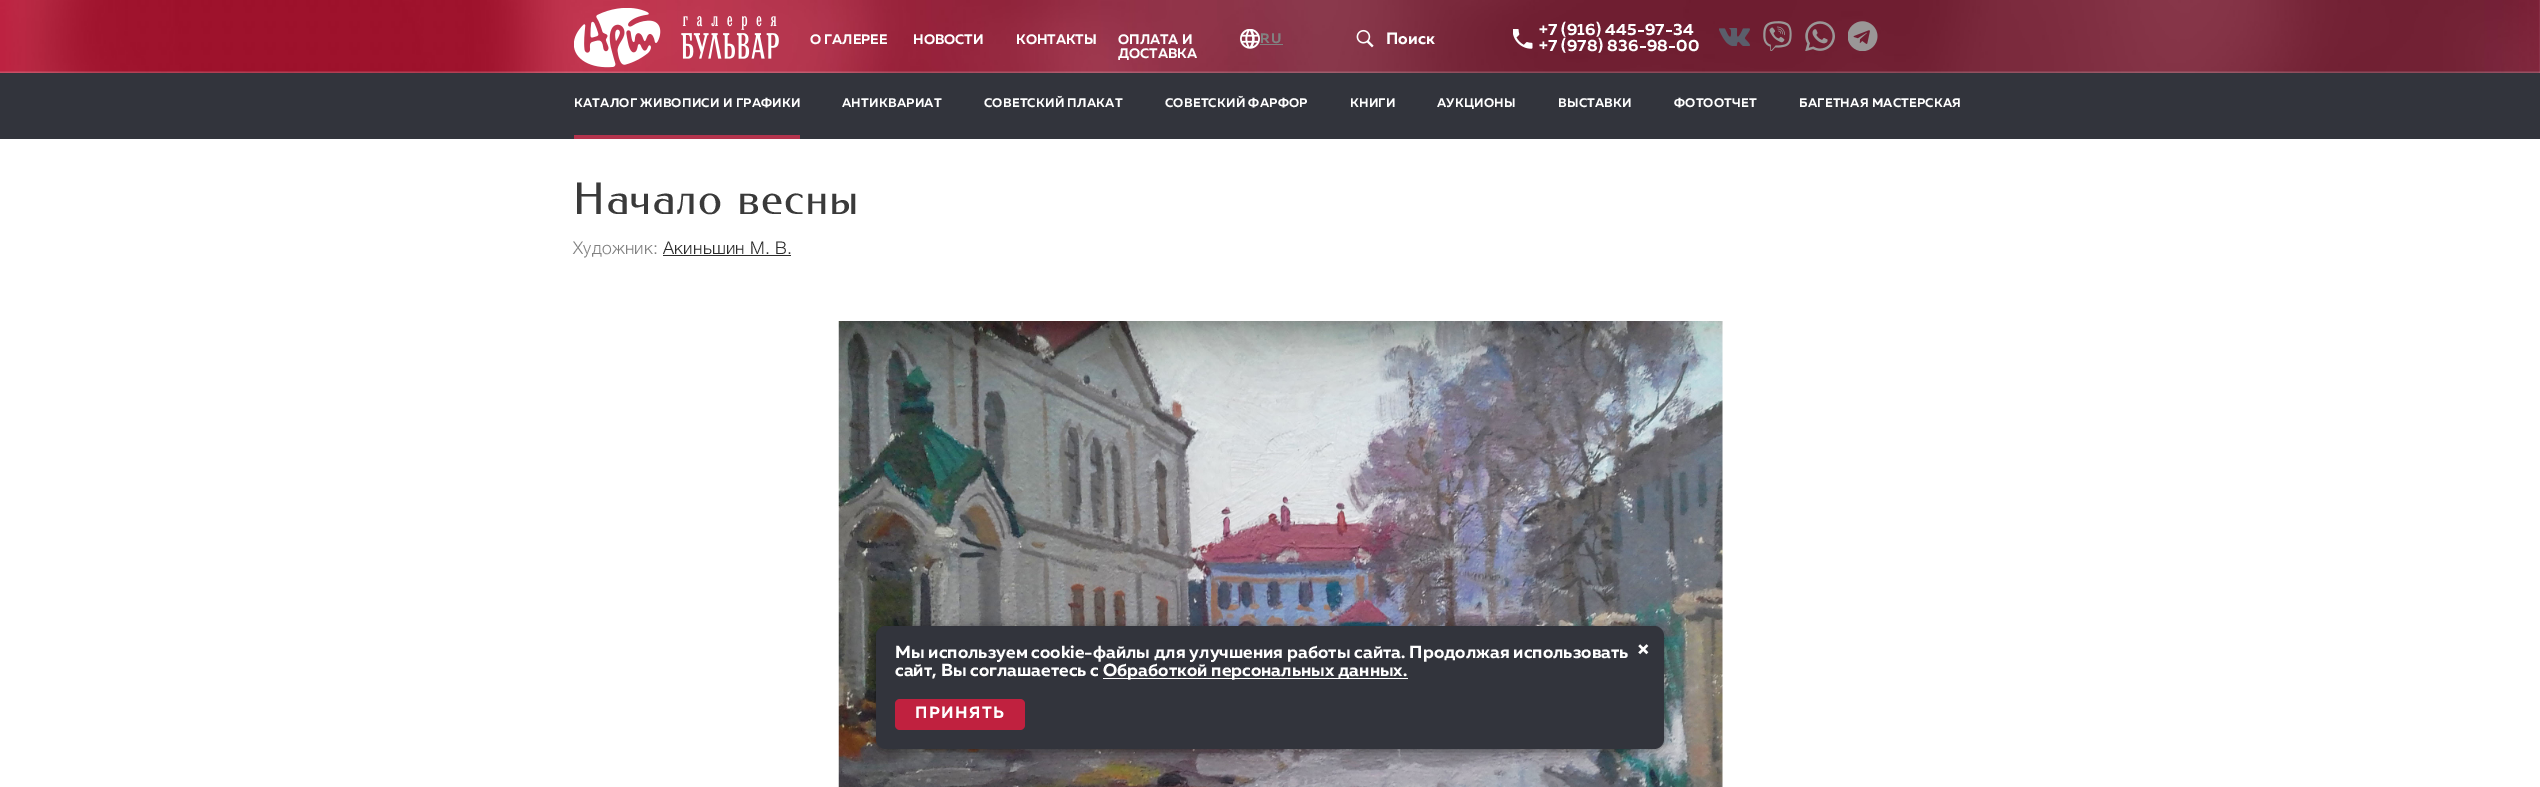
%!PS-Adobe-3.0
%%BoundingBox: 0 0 2540 787
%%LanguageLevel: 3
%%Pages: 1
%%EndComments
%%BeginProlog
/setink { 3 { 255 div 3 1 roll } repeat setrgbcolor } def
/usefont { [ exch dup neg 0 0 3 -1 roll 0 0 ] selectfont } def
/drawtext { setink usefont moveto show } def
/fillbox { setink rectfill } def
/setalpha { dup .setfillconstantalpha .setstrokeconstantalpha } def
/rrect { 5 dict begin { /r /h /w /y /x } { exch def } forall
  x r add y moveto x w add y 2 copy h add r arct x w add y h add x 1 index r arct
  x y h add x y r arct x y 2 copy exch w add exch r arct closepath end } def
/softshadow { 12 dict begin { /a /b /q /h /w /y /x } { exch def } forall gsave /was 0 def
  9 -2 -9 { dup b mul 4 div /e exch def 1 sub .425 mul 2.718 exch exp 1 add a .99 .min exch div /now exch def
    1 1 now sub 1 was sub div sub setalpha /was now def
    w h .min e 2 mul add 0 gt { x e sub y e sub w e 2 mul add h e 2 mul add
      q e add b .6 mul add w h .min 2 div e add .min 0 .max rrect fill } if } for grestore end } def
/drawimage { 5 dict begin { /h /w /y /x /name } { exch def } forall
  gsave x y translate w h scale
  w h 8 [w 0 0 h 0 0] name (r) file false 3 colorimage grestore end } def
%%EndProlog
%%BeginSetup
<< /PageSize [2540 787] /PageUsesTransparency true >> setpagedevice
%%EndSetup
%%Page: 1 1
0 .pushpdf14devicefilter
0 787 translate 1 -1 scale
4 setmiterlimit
0 0 2540 787 255 255 255 fillbox
(assets/img1.rgb) 0 0 2540 73 drawimage
(assets/img2.rgb) 574 8 205 60 drawimage
(О ГАЛЕРЕЕ) 810 44 /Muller-Bold 13.75 255 255 255 drawtext
(НОВОСТИ) 913 44 /Muller-Bold 13.75 255 255 255 drawtext
(КОНТАКТЫ) 1016 44 /Muller-Bold 13.75 255 255 255 drawtext
(ОПЛАТА И) 1118 44 /Muller-Bold 13.75 255 255 255 drawtext
(ДОСТАВКА) 1118 58 /Muller-Bold 13.75 255 255 255 drawtext
(assets/img3.rgb) 1240 29 20 20 drawimage
129 129 129 setink
1260 43 moveto 1 0 (RU) ashow
1260 44 23 1 129 129 129 fillbox
(assets/img4.rgb) 1356 29 18 19 drawimage
(Поиск) 1386 44 /Muller-Bold 16.25 255 255 255 drawtext
(assets/img5.rgb) 1513 29 20 20 drawimage
1539 35 moveto 0.25 0 (+7 \(916\) 445-97-34) ashow
1539 51 moveto 0.25 0 (+7 \(978\) 836-98-00) ashow
(assets/img6.rgb) 1719 28 31 18 drawimage
(assets/img7.rgb) 1763 21 29 30 drawimage
(assets/img8.rgb) 1805 21 30 30 drawimage
(assets/img9.rgb) 1848 21 30 30 drawimage
0 73 2540 66 50 52 60 fillbox
574 135 226 4 180 52 77 fillbox
/Muller-Bold 12.5 usefont
255 255 255 setink
574 107 moveto 0.25 0 (КАТАЛОГ ЖИВОПИСИ И ГРАФИКИ) ashow
842 107 moveto 0.25 0 (АНТИКВАРИАТ) ashow
984 107 moveto 0.25 0 (СОВЕТСКИЙ ПЛАКАТ) ashow
1165 107 moveto 0.25 0 (СОВЕТСКИЙ ФАРФОР) ashow
1350 107 moveto 0.25 0 (КНИГИ) ashow
1437 107 moveto 0.25 0 (АУКЦИОНЫ) ashow
1558 107 moveto 0.25 0 (ВЫСТАВКИ) ashow
1674 107 moveto 0.25 0 (ФОТООТЧЕТ) ashow
1799 107 moveto 0.25 0 (БАГЕТНАЯ МАСТЕРСКАЯ) ashow
/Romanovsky-Regular 45 usefont
58 58 58 setink
573 214 moveto 0.75 0 (Начало весны) ashow
/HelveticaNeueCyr-Light 17.5 usefont
129 129 129 setink
573 254 moveto 0.25 0 (Художник:) ashow
43 43 43 setink
663 254 moveto 0.25 0 (Акиньшин М. В.) ashow
663 255 128 1 43 43 43 fillbox
(assets/img10.rgb) 838 321 885 466 drawimage
0 0 0 setink
876 629 788 122 10 6 0.5 softshadow
50 52 60 setink
876 626 788 123 10 rrect fill
(Мы используем cookie-файлы для улучшения работы сайта. Продолжая использовать) 895 658 /Muller-Bold 17.5 255 255 255 drawtext
(сайт, Вы соглашаетесь с) 895 676 /Muller-Bold 17.5 255 255 255 drawtext
1103 678 305 1 255 255 255 fillbox
(Обработкой персональных данных.) 1103 676 /Muller-Bold 17.5 255 255 255 drawtext
/Muller-Bold 25 usefont
1637 658 moveto 1.5 0 (×) ashow
192 33 63 setink
895 699 130 31 5 rrect fill
/Muller-Bold 16.25 usefont
255 255 255 setink
915 718 moveto 1.5 0 (ПРИНЯТЬ) ashow
.poppdf14devicefilter showpage
%%EOF
